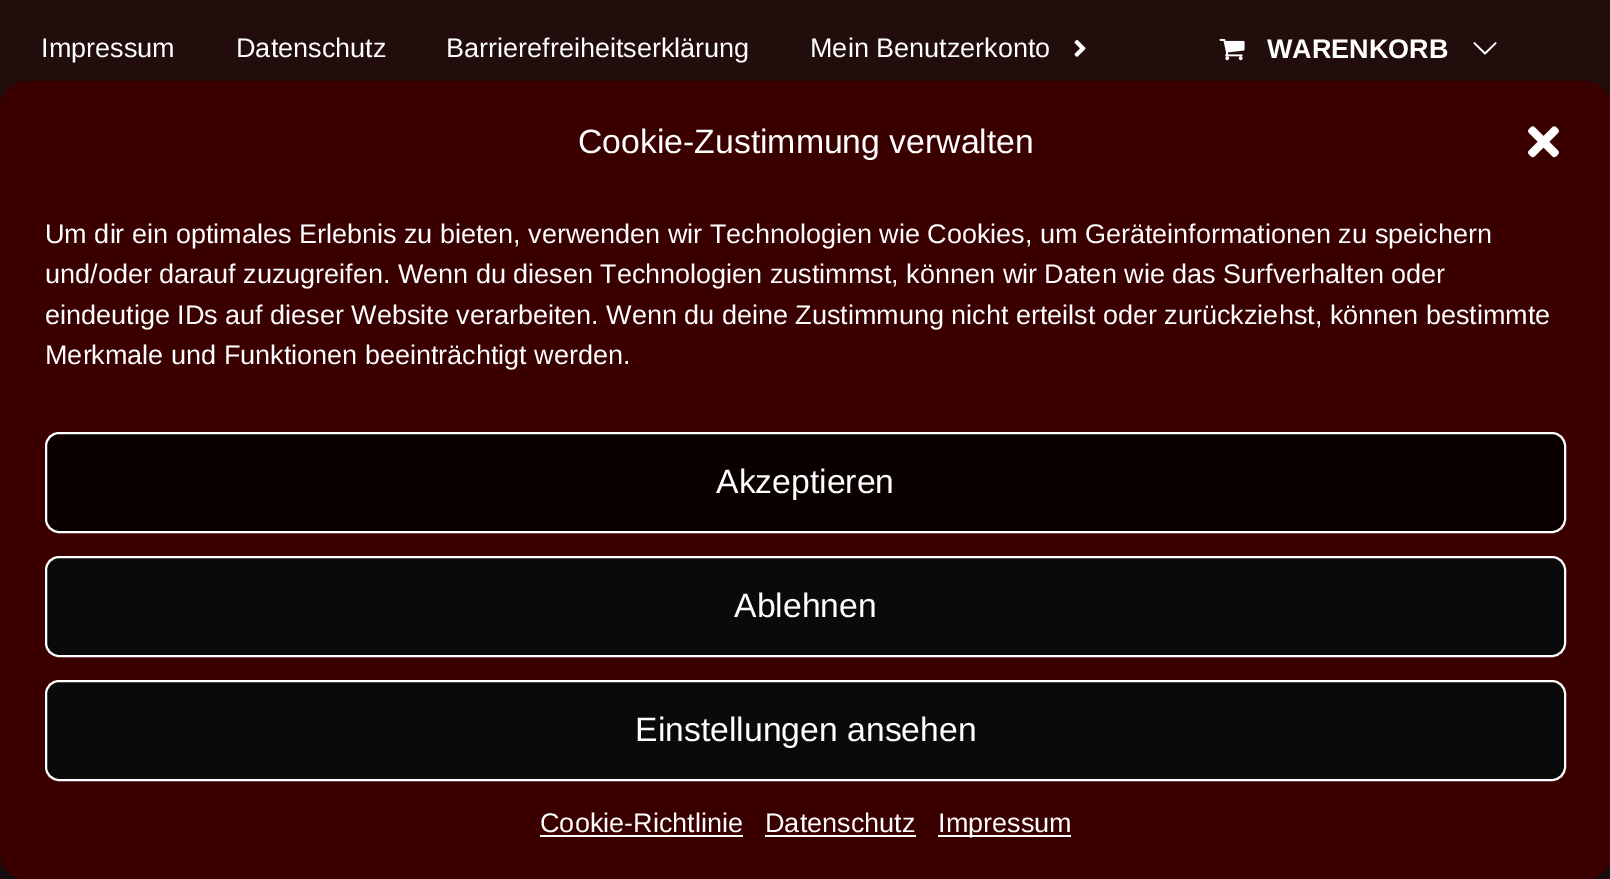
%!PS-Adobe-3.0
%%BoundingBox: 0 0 1610 879
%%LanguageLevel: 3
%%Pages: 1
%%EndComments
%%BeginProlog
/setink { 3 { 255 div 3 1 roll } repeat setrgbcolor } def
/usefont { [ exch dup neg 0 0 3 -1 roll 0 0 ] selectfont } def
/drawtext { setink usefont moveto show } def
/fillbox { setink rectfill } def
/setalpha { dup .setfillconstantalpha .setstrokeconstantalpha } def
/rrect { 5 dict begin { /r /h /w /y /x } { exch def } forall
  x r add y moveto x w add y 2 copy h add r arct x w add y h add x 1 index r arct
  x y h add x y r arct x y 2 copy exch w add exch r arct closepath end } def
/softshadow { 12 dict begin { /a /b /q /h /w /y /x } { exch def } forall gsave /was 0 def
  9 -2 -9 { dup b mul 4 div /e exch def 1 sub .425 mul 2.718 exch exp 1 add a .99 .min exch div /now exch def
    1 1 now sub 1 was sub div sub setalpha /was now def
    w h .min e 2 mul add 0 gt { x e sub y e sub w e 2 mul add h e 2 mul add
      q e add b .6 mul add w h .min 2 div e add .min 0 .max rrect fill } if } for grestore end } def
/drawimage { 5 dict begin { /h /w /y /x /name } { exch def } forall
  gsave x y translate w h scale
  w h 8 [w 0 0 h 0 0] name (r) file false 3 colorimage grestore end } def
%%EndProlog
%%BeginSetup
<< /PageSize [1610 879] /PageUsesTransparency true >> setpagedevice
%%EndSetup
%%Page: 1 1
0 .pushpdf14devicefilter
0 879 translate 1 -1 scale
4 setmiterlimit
0 0 1610 879 21 15 15 fillbox
(assets/img1.rgb) 1 867 3 4 drawimage
0 0 1610 99 34 13 13 fillbox
0 99 1610 2 63 11 11 fillbox
(Impressum) 41 57 /LiberationSans-Regular 27 255 255 255 drawtext
(Datenschutz) 236 57 /LiberationSans-Regular 27 255 255 255 drawtext
(Barrierefreiheitserklärung) 446 57 /LiberationSans-Regular 27 255 255 255 drawtext
(Mein Benutzerkonto) 810 57 /LiberationSans-Regular 27 255 255 255 drawtext
(assets/img2.rgb) 1074 40 12 17 drawimage
(assets/img3.rgb) 1219 38 26 23 drawimage
(WARENKORB) 1267 58 /LiberationSans-Bold 27 255 255 255 drawtext
(assets/img4.rgb) 1473 42 24 13 drawimage
0 0 0 setink
0 95 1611 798 27 7 0.23 softshadow
58 0 0 setink
0 81 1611 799 27 rrect fill
(Cookie-Zustimmung verwalten) 578 153 /LiberationSans-Regular 33.75 255 255 255 drawtext
(assets/img5.rgb) 1528 126 31 32 drawimage
(Um dir ein optimales Erlebnis zu bieten, verwenden wir Technologien wie Cookies, um Geräteinformationen zu speichern) 45 243 /LiberationSans-Regular 27 255 255 255 drawtext
(und/oder darauf zuzugreifen. Wenn du diesen Technologien zustimmst, können wir Daten wie das Surfverhalten oder) 45 283 /LiberationSans-Regular 27 255 255 255 drawtext
(eindeutige IDs auf dieser Website verarbeiten. Wenn du deine Zustimmung nicht erteilst oder zurückziehst, können bestimmte) 45 324 /LiberationSans-Regular 27 255 255 255 drawtext
(Merkmale und Funktionen beeinträchtigt werden.) 45 364 /LiberationSans-Regular 27 255 255 255 drawtext
10 0 0 setink
46 433 1519 99 13 rrect gsave fill grestore
255 255 255 setink
2 setlinewidth
stroke
(Akzeptieren) 716 493 /LiberationSans-Regular 33.75 255 255 255 drawtext
10 10 10 setink
46 557 1519 99 13 rrect gsave fill grestore
255 255 255 setink
stroke
(Ablehnen) 734 617 /LiberationSans-Regular 33.75 255 255 255 drawtext
10 10 10 setink
46 681 1519 99 13 rrect gsave fill grestore
255 255 255 setink
stroke
(Einstellungen ansehen) 635 741 /LiberationSans-Regular 33.75 255 255 255 drawtext
(Cookie-Richtlinie) 540 832 /LiberationSans-Regular 27 255 255 255 drawtext
540 835 203 2 255 255 255 fillbox
(Datenschutz) 765 832 /LiberationSans-Regular 27 255 255 255 drawtext
765 835 151 2 255 255 255 fillbox
938 835 133 2 255 255 255 fillbox
(Impressum) 938 832 /LiberationSans-Regular 27 255 255 255 drawtext
.poppdf14devicefilter showpage
%%EOF
